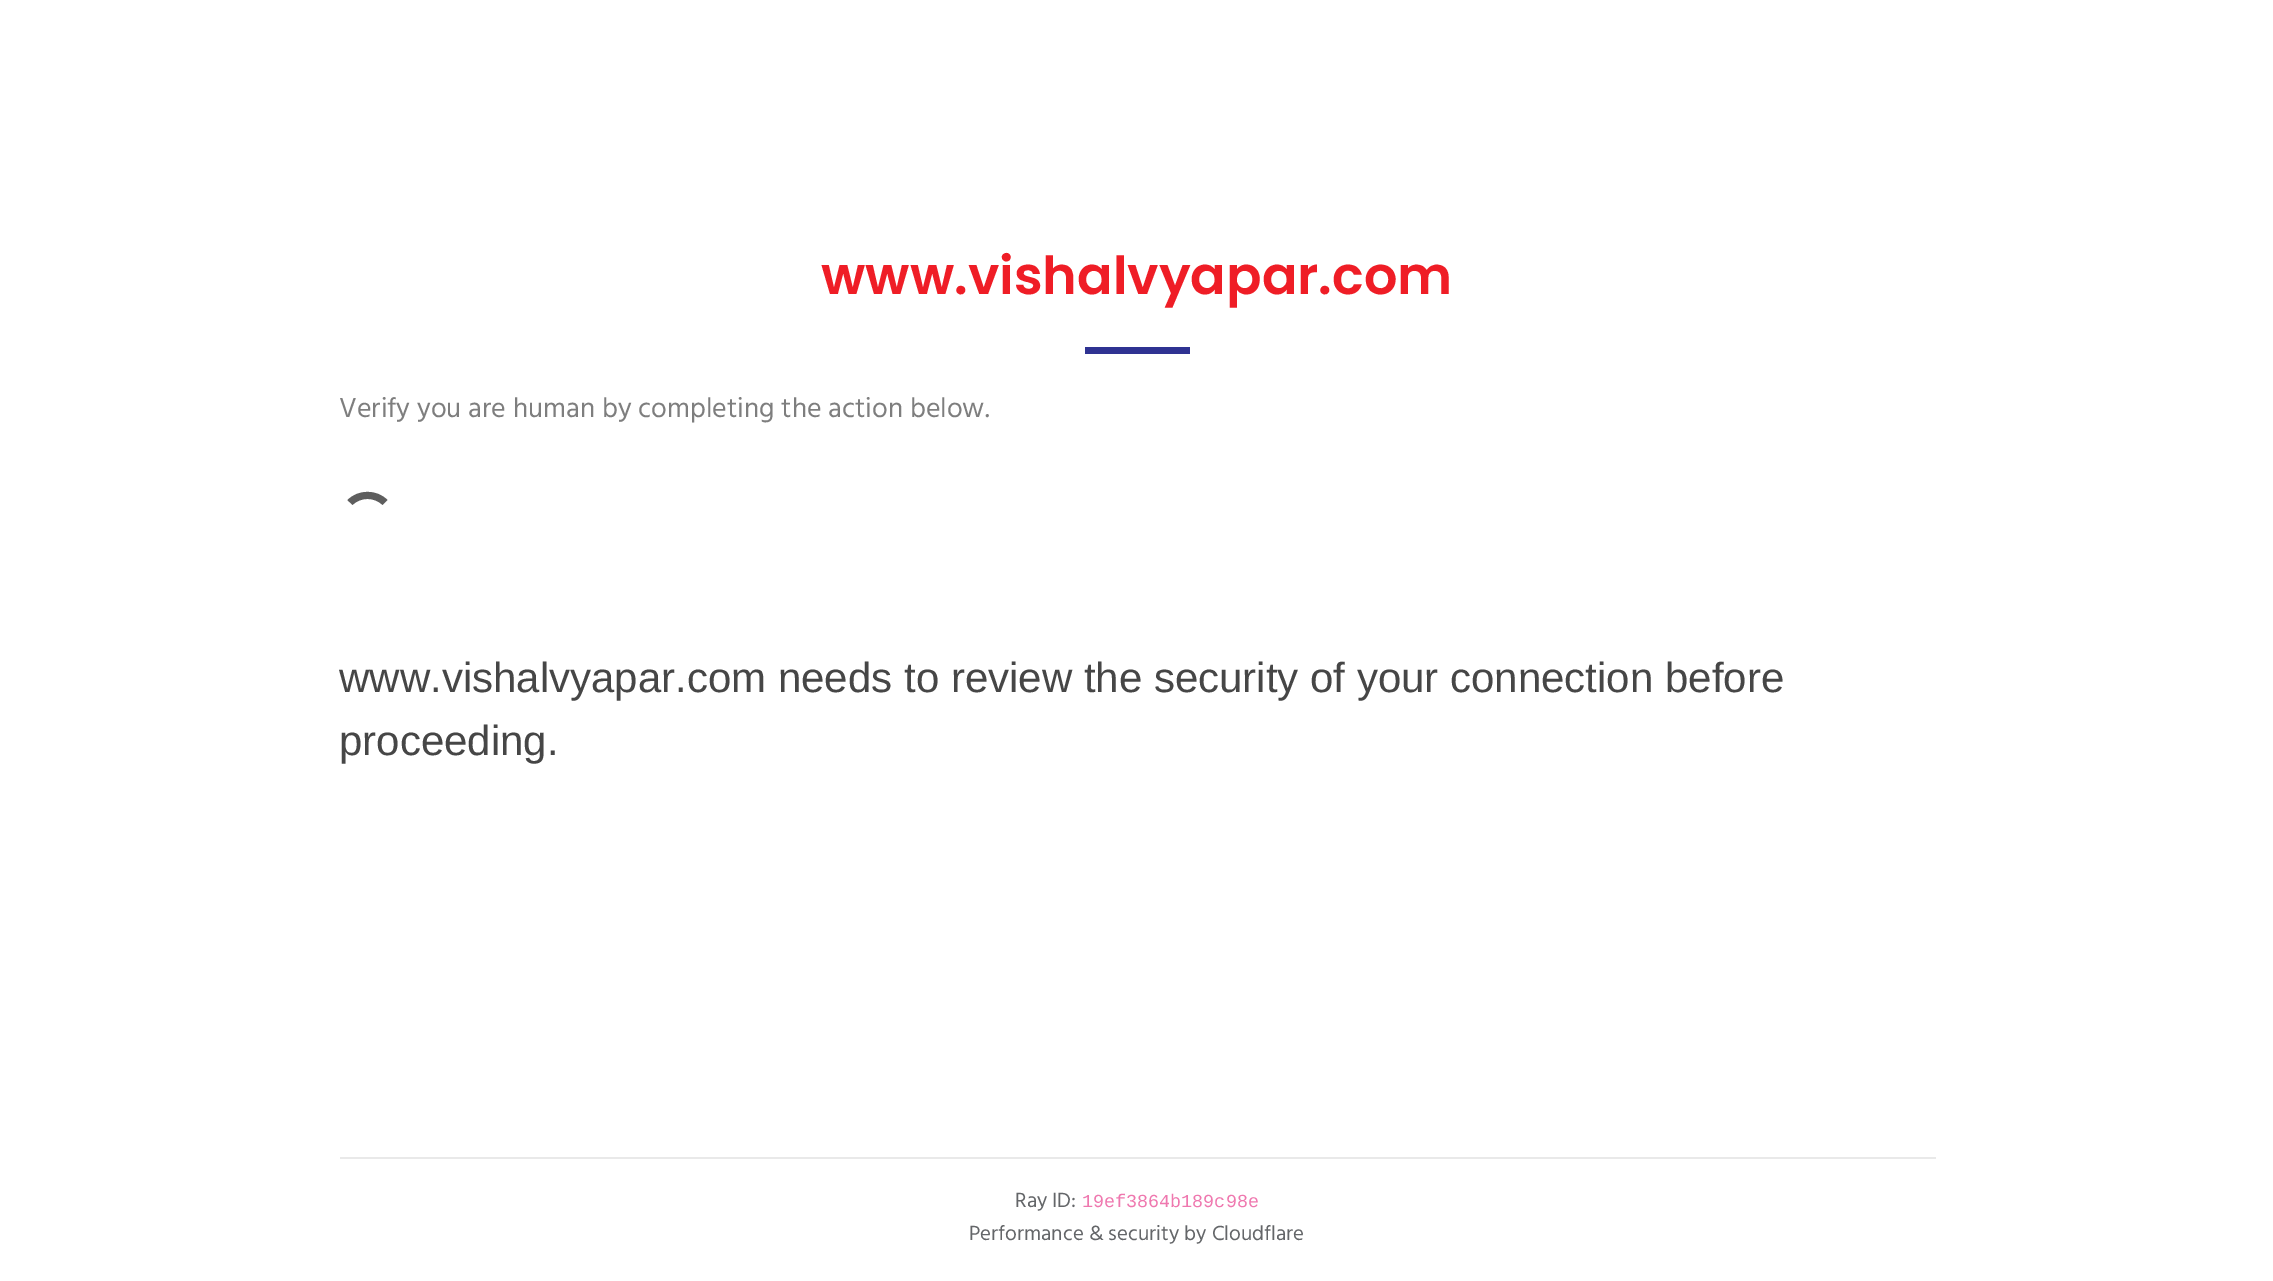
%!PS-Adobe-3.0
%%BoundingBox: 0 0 2273 1281
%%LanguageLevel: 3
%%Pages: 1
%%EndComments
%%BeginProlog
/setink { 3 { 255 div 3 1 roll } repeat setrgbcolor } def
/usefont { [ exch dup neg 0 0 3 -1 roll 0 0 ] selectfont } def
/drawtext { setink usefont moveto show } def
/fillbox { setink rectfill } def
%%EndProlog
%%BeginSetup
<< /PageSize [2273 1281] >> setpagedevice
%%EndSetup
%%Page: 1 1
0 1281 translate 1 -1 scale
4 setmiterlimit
0 0 2273 1281 255 255 255 fillbox
(www.vishalvyapar.com) 821 294 /Poppins-SemiBold 52.5 239 29 38 drawtext
1085 347 105 7 47 50 146 fillbox
(Verify you are human by completing the action below.) 339 417 /Hind-Regular 28 126 126 126 drawtext
94 94 94 setink
7 setlinewidth
350 502.5 moveto 359.5 493 375.5 493 385 502.5 curveto stroke
(www.vishalvyapar.com needs to review the security of your connection before) 339 692 /LiberationSans-Regular 42 70 70 70 drawtext
(proceeding.) 339 755 /LiberationSans-Regular 42 70 70 70 drawtext
340 1157 1596 2 233 233 233 fillbox
(Ray ID:) 1015 1207 /Hind-Regular 21 100 102 105 drawtext
(19ef3864b189c98e) 1082 1207 /LiberationMono-Regular 18.4 239 120 175 drawtext
(Performance & security by Cloudflare) 969 1240 /Hind-Regular 21 100 102 105 drawtext
showpage
%%EOF
